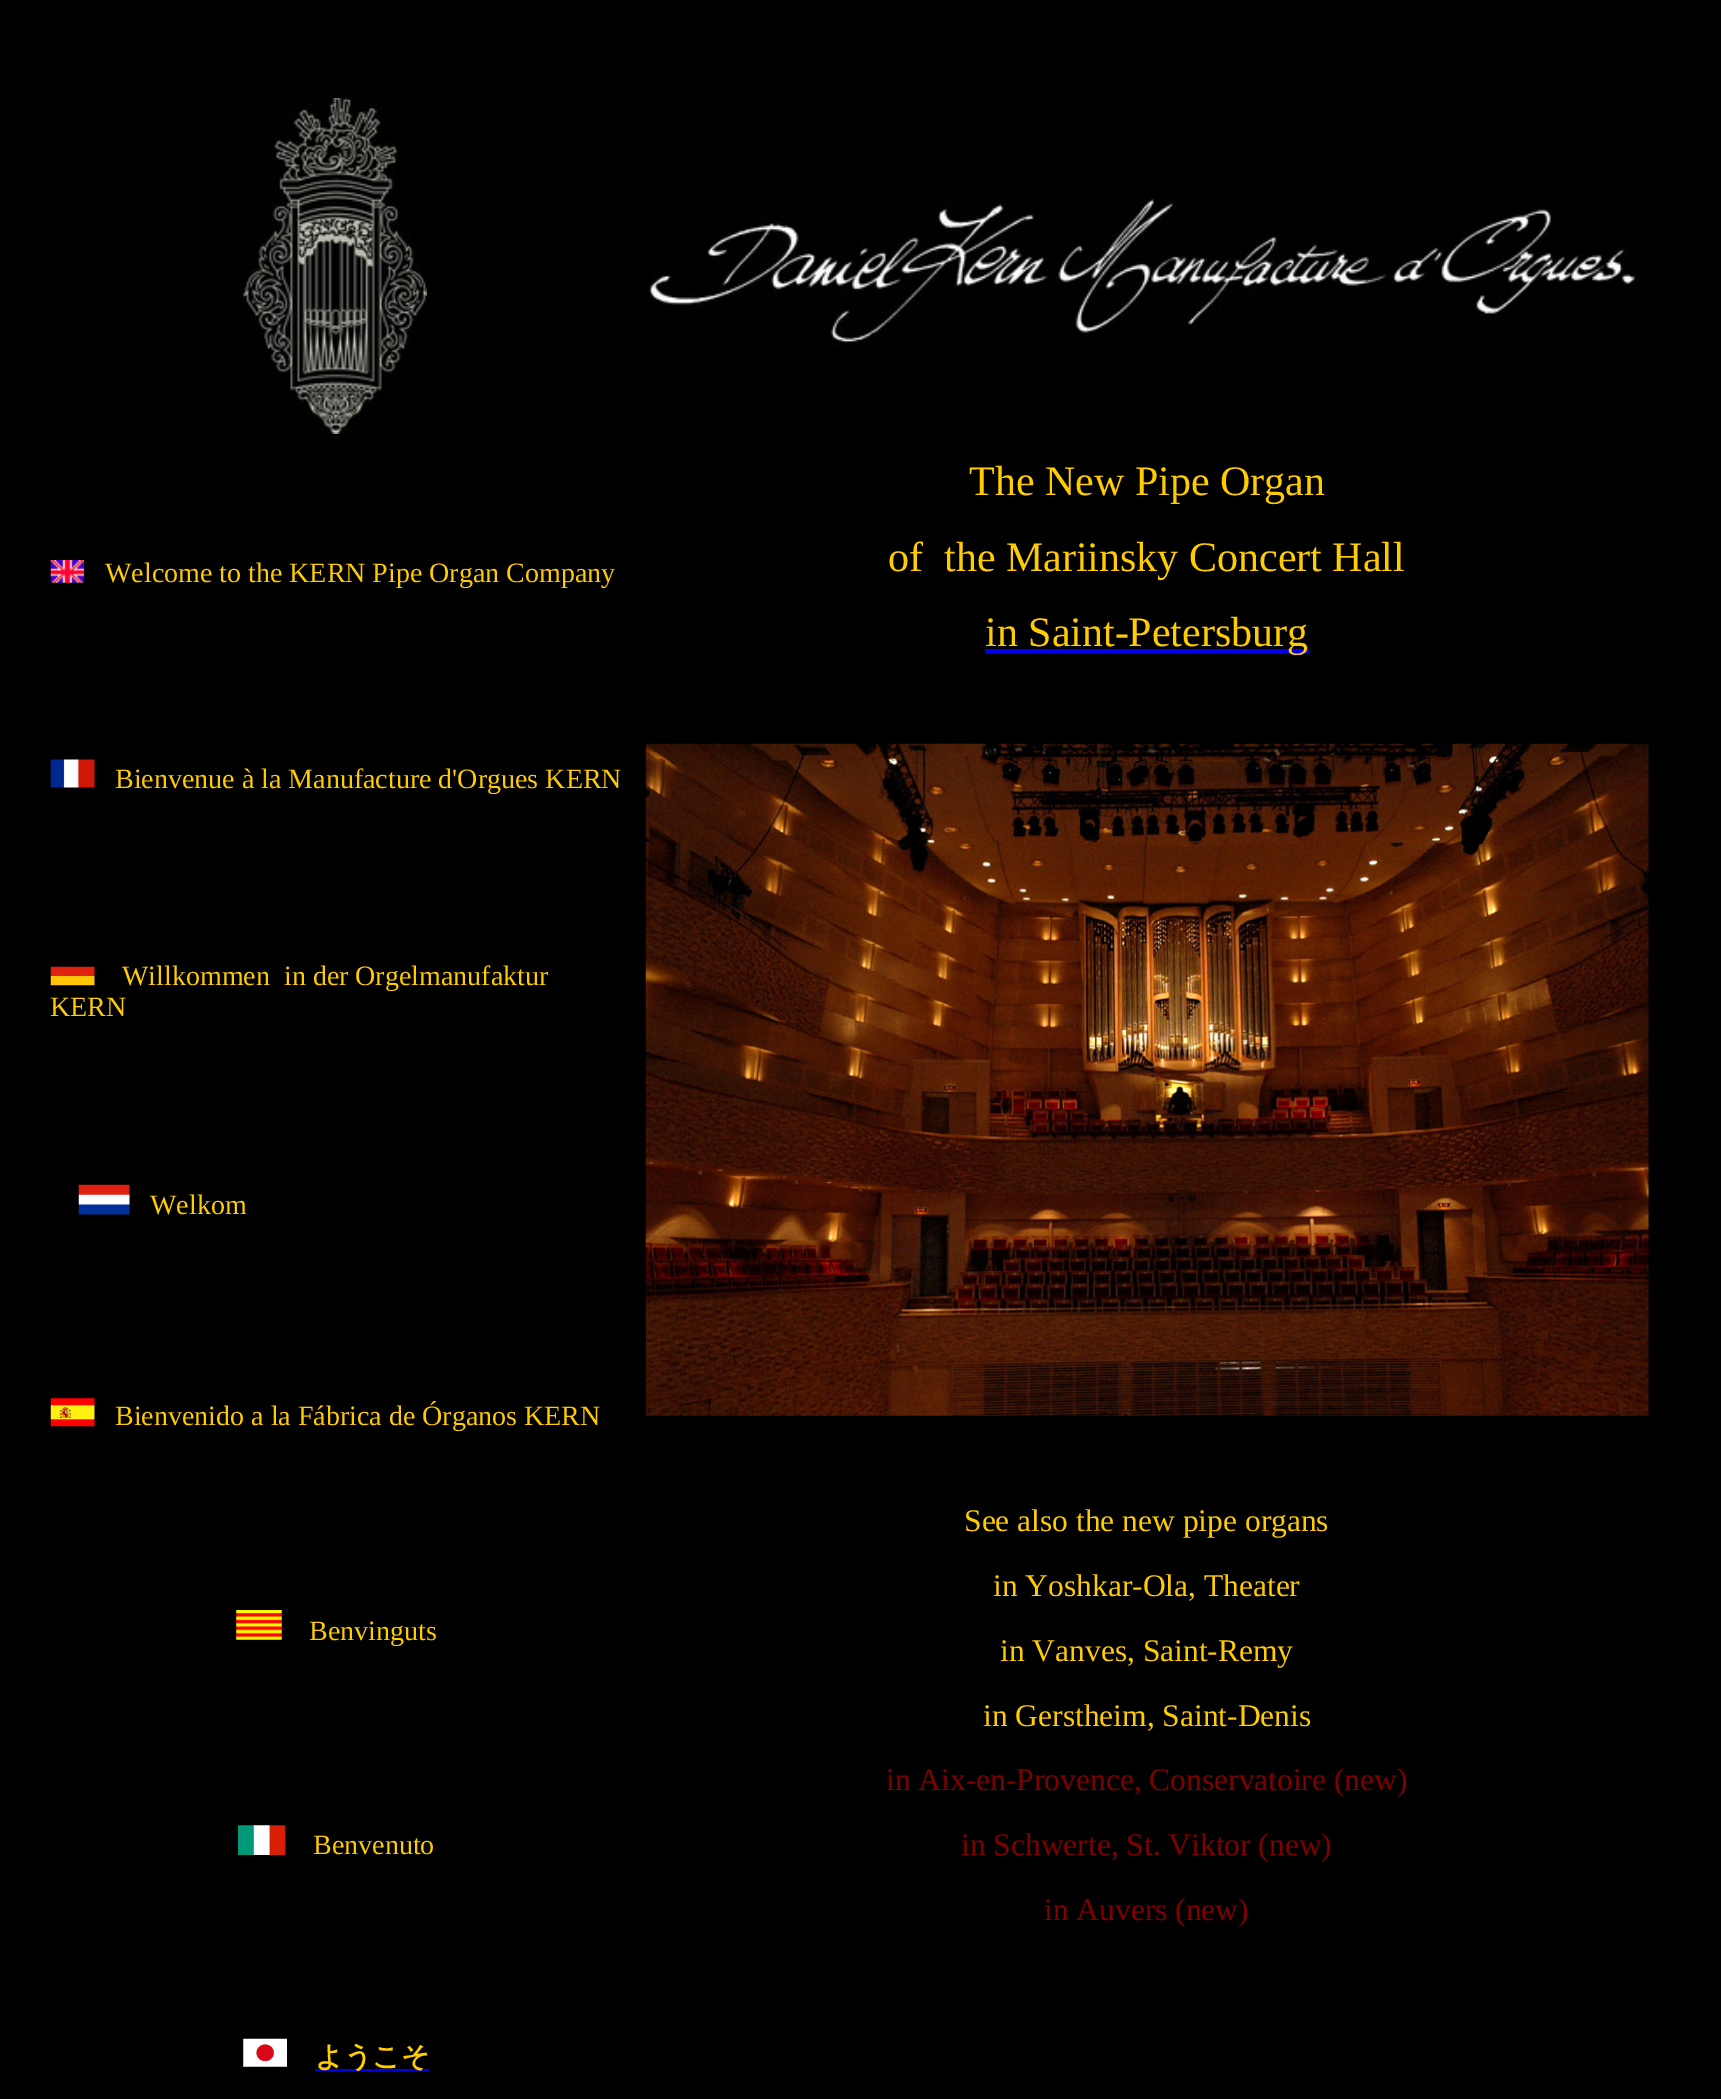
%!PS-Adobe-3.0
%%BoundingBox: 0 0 1721 2099
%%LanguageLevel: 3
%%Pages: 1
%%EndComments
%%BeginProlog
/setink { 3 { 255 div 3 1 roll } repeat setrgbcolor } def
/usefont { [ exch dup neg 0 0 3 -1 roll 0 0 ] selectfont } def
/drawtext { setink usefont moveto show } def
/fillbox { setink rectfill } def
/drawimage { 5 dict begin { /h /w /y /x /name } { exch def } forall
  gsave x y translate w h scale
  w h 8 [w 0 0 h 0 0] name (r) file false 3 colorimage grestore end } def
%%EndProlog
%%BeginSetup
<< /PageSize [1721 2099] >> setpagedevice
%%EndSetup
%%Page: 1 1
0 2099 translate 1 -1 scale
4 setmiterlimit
0 0 1721 2099 0 0 0 fillbox
(assets/img1.rgb) 243 98 184 336 drawimage
(assets/img2.rgb) 649 199 994 149 drawimage
(assets/img3.rgb) 50 560 34 23 drawimage
(Welcome to the KERN Pipe Organ Company) 105 582 /LiberationSerif-Regular 28 255 204 0 drawtext
(The New Pipe Organ) 969 495 /LiberationSerif-Regular 42 255 204 0 drawtext
(of  the Mariinsky Concert Hall) 888 571 /LiberationSerif-Regular 42 255 204 0 drawtext
985 649 324 4 0 0 238 fillbox
(in Saint-Petersburg) 985 646 /LiberationSerif-Regular 42 255 204 0 drawtext
(assets/img4.rgb) 645 743 1004 673 drawimage
(See also the new pipe organs) 964 1531 /LiberationSerif-Regular 31.5 255 204 0 drawtext
(in Yoshkar-Ola, Theater) 993 1596 /LiberationSerif-Regular 31.5 255 204 0 drawtext
(in Vanves, Saint-Remy) 1000 1661 /LiberationSerif-Regular 31.5 255 204 0 drawtext
(in Gerstheim, Saint-Denis) 983 1726 /LiberationSerif-Regular 31.5 255 204 0 drawtext
(in Aix-en-Provence, Conservatoire \(new\)) 886 1790 /LiberationSerif-Regular 31.5 128 0 0 drawtext
(in Schwerte, St. Viktor \(new\)) 961 1855 /LiberationSerif-Regular 31.5 128 0 0 drawtext
(in Auvers \(new\)) 1044 1920 /LiberationSerif-Regular 31.5 128 0 0 drawtext
(assets/img5.rgb) 50 759 45 29 drawimage
(Bienvenue à la Manufacture d'Orgues KERN) 115 788 /LiberationSerif-Regular 28 255 204 0 drawtext
(assets/img6.rgb) 50 966 45 20 drawimage
(Willkommen  in der Orgelmanufaktur) 122 985 /LiberationSerif-Regular 28 255 204 0 drawtext
(KERN) 50 1016 /LiberationSerif-Regular 28 255 204 0 drawtext
(assets/img7.rgb) 78 1184 52 31 drawimage
(Welkom) 150 1214 /LiberationSerif-Regular 28 255 204 0 drawtext
(assets/img8.rgb) 50 1398 45 29 drawimage
(Bienvenido a la Fábrica de Órganos KERN) 115 1425 /LiberationSerif-Regular 28 255 204 0 drawtext
(assets/img9.rgb) 236 1610 46 30 drawimage
(Benvinguts) 309 1640 /LiberationSerif-Regular 28 255 204 0 drawtext
(assets/img10.rgb) 238 1825 48 30 drawimage
(Benvenuto) 313 1854 /LiberationSerif-Regular 28 255 204 0 drawtext
(assets/img11.rgb) 243 2038 44 29 drawimage
315 2069 114 2 0 0 238 fillbox
(ようこそ) 315 2066 /WenQuanYiZenHei-Bold 28 255 204 0 drawtext
showpage
%%EOF
